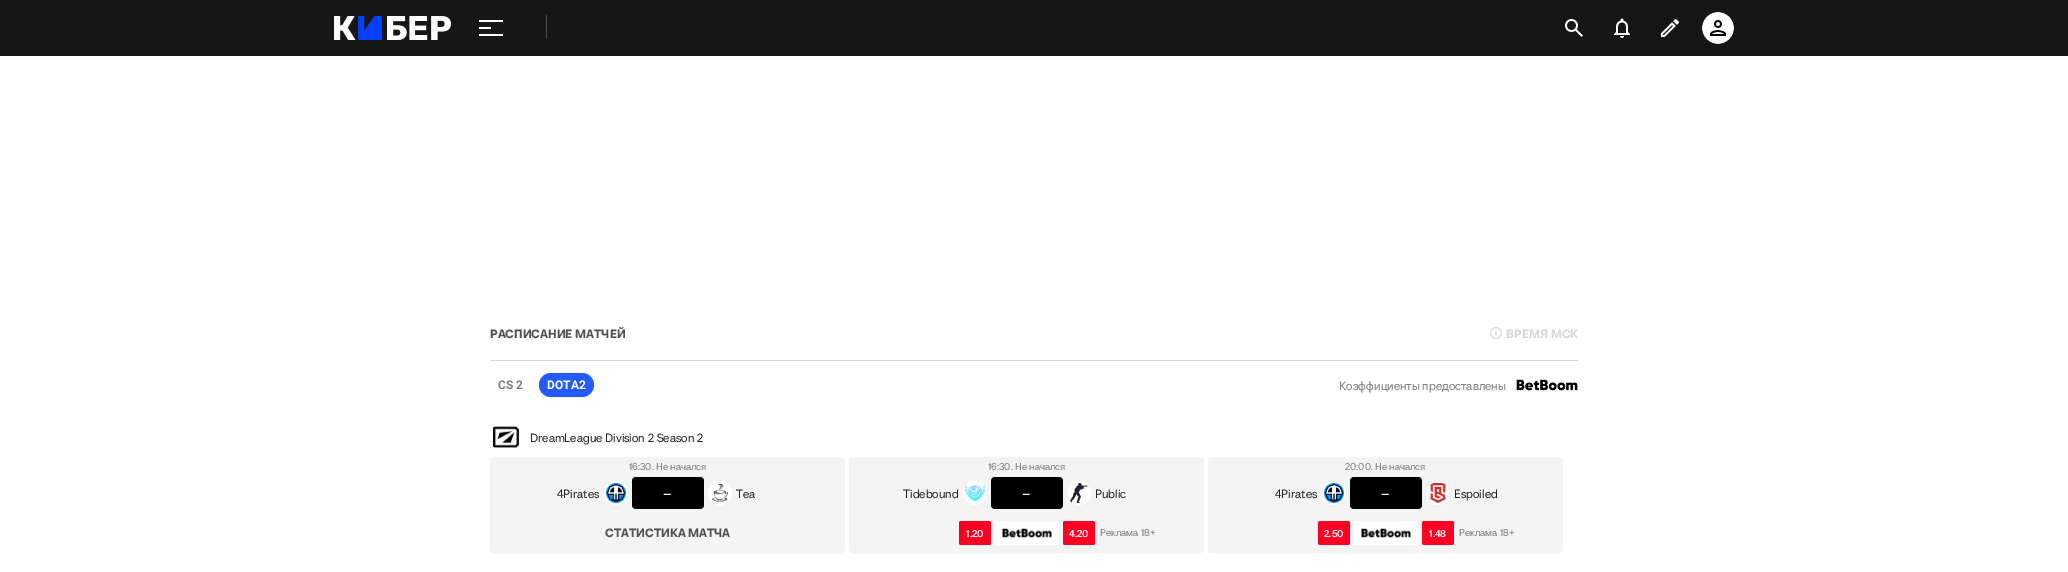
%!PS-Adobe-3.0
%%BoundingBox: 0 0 2068 572
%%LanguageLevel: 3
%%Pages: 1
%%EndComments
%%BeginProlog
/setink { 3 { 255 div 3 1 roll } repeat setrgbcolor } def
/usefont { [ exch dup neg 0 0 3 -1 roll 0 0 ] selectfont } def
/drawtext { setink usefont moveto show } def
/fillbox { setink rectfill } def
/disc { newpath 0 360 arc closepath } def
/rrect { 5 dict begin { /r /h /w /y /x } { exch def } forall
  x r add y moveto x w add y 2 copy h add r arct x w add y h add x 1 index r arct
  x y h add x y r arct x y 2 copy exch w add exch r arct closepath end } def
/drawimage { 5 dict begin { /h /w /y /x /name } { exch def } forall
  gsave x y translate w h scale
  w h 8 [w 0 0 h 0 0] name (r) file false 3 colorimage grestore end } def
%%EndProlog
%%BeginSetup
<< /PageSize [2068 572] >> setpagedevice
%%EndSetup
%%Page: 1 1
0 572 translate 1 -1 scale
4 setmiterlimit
0 0 2068 572 255 255 255 fillbox
0 0 2068 56 22 22 22 fillbox
(assets/img1.rgb) 334 16 117 24 drawimage
479 20 24 2 255 255 255 fillbox
479 27 12 2 255 255 255 fillbox
479 34 24 2 255 255 255 fillbox
546 15 1 24 78 78 78 fillbox
(assets/img2.rgb) 1565 19 18 18 drawimage
(assets/img3.rgb) 1614 18 16 20 drawimage
(assets/img4.rgb) 1661 19 18 18 drawimage
(assets/img5.rgb) 1702 12 32 32 drawimage
490 360 1088 1 216 216 216 fillbox
(РАСПИСАНИЕ МАТЧЕЙ) 490 338 /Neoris-SemiBold 12 80 80 80 drawtext
(assets/img6.rgb) 1490 327 12 12 drawimage
(ВРЕМЯ МСК) 1506 338 /Neoris-SemiBold 12 216 216 216 drawtext
(CS 2) 498 389 /Roboto-Bold 12 127 127 127 drawtext
35 91 255 setink
539 373 55 24 12 rrect fill
(DOTA2) 547 389 /Roboto-Bold 12 255 255 255 drawtext
(Коэффициенты предоставлены) 1339 390 /Neoris-Regular 12 127 127 127 drawtext
(assets/img7.rgb) 1516 379 62 12 drawimage
(assets/img8.rgb) 493 426 26 22 drawimage
(DreamLeague Division 2 Season 2) 530 442 /Neoris-Regular 12 34 34 34 drawtext
244 244 244 setink
490 457 355 96 4 rrect fill
(16:30. Не начался) 629 470 /Neoris-Regular 10 127 127 127 drawtext
(4Pirates) 557 498 /Neoris-Regular 12 34 34 34 drawtext
255 255 255 setink
616 493 12 disc fill
(assets/img9.rgb) 606 483 20 20 drawimage
0 0 0 setink
632 477 72 32 4 rrect fill
(–) 663 498 /Neoris-Regular 14 255 255 255 drawtext
720 493 12 disc fill
(assets/img10.rgb) 712 483 16 19 drawimage
(Tea) 736 498 /Neoris-Regular 12 34 34 34 drawtext
(СТАТИСТИКА МАТЧА) 605 537 /Neoris-SemiBold 12 80 80 80 drawtext
244 244 244 setink
849 457 355 96 4 rrect fill
(16:30. Не начался) 988 470 /Neoris-Regular 10 127 127 127 drawtext
(Tidebound) 903 498 /Neoris-Regular 12 34 34 34 drawtext
255 255 255 setink
975 493 12 disc fill
(assets/img11.rgb) 965 485 20 16 drawimage
0 0 0 setink
991 477 72 32 4 rrect fill
(–) 1022 498 /Neoris-Regular 14 255 255 255 drawtext
1079 493 12 disc fill
(assets/img12.rgb) 1070 483 19 20 drawimage
(Public) 1095 498 /Neoris-Regular 12 34 34 34 drawtext
255 0 37 setink
959 521 32 24 2 rrect fill
(1.20) 966 537 /Neoris-Medium 10 255 255 255 drawtext
995 521 64 24 255 255 255 fillbox
(assets/img13.rgb) 1002 528 50 10 drawimage
255 0 37 setink
1063 521 32 24 2 rrect fill
(4.20) 1069 537 /Neoris-Medium 10 255 255 255 drawtext
(Реклама 18+) 1100 536 /Neoris-Regular 10 127 127 127 drawtext
244 244 244 setink
1208 457 355 96 4 rrect fill
(20:00. Не начался) 1345 470 /Neoris-Regular 10 127 127 127 drawtext
(4Pirates) 1275 498 /Neoris-Regular 12 34 34 34 drawtext
255 255 255 setink
1334 493 12 disc fill
(assets/img9.rgb) 1324 483 20 20 drawimage
0 0 0 setink
1350 477 72 32 4 rrect fill
(–) 1381 498 /Neoris-Regular 14 255 255 255 drawtext
1438 493 12 disc fill
(assets/img14.rgb) 1430 483 16 20 drawimage
(Espoiled) 1454 498 /Neoris-Regular 12 34 34 34 drawtext
255 0 37 setink
1318 521 32 24 2 rrect fill
(2.50) 1324 537 /Neoris-Medium 10 255 255 255 drawtext
1354 521 64 24 255 255 255 fillbox
(assets/img13.rgb) 1361 528 50 10 drawimage
255 0 37 setink
1422 521 32 24 2 rrect fill
(1.48) 1429 537 /Neoris-Medium 10 255 255 255 drawtext
(Реклама 18+) 1459 536 /Neoris-Regular 10 127 127 127 drawtext
showpage
%%EOF
